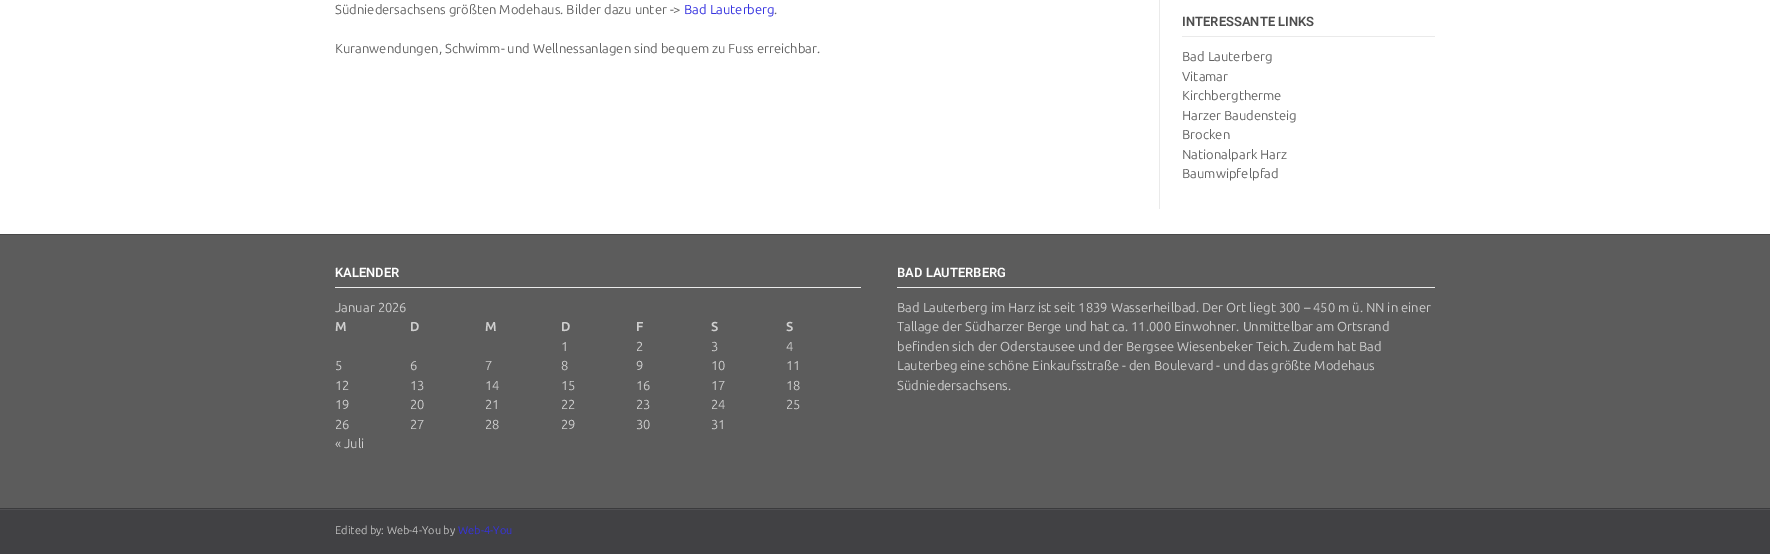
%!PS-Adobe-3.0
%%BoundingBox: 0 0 1770 554
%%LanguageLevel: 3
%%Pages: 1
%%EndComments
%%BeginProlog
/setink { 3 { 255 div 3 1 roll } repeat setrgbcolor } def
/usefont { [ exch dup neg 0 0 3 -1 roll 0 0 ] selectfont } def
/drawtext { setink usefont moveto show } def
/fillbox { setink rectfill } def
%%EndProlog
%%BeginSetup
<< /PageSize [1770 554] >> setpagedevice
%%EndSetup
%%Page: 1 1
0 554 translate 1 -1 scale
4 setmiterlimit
0 0 1770 554 255 255 255 fillbox
(Südniedersachsens größten Modehaus. Bilder dazu unter ->) 335 14 /Ubuntu-Regular 13 98 98 98 drawtext
(Bad Lauterberg) 684 14 /Ubuntu-Regular 13 54 51 224 drawtext
(.) 774 14 /Ubuntu-Regular 13 98 98 98 drawtext
(Kuranwendungen, Schwimm- und Wellnessanlagen sind bequem zu Fuss erreichbar.) 335 53 /Ubuntu-Regular 13 98 98 98 drawtext
1159 0 1 209 234 234 234 fillbox
1182 36 253 1 234 234 234 fillbox
(INTERESSANTE LINKS) 1182 26 /Roboto-SemiBold 13 77 77 77 drawtext
(Bad Lauterberg) 1182 61 /Ubuntu-Regular 13 98 98 98 drawtext
(Vitamar) 1182 81 /Ubuntu-Regular 13 98 98 98 drawtext
(Kirchbergtherme) 1182 100 /Ubuntu-Regular 13 98 98 98 drawtext
(Harzer Baudensteig) 1182 120 /Ubuntu-Regular 13 98 98 98 drawtext
(Brocken) 1182 139 /Ubuntu-Regular 13 98 98 98 drawtext
(Nationalpark Harz) 1182 159 /Ubuntu-Regular 13 98 98 98 drawtext
(Baumwipfelpfad) 1182 178 /Ubuntu-Regular 13 98 98 98 drawtext
0 235 1770 273 92 92 92 fillbox
0 234 1770 1 72 72 72 fillbox
335 287 526 1 234 234 234 fillbox
(KALENDER) 335 277 /Roboto-SemiBold 13 255 255 255 drawtext
(Januar 2026) 335 312 /Ubuntu-Regular 13 207 207 207 drawtext
(M) 335 331 /Ubuntu-Bold 13 207 207 207 drawtext
(D) 410 331 /Ubuntu-Bold 13 207 207 207 drawtext
(M) 485 331 /Ubuntu-Bold 13 207 207 207 drawtext
(D) 561 331 /Ubuntu-Bold 13 207 207 207 drawtext
(F) 636 331 /Ubuntu-Bold 13 207 207 207 drawtext
(S) 711 331 /Ubuntu-Bold 13 207 207 207 drawtext
(S) 786 331 /Ubuntu-Bold 13 207 207 207 drawtext
(1) 561 351 /Ubuntu-Regular 13 207 207 207 drawtext
(2) 636 351 /Ubuntu-Regular 13 207 207 207 drawtext
(3) 711 351 /Ubuntu-Regular 13 207 207 207 drawtext
(4) 786 351 /Ubuntu-Regular 13 207 207 207 drawtext
(5) 335 370 /Ubuntu-Regular 13 207 207 207 drawtext
(6) 410 370 /Ubuntu-Regular 13 207 207 207 drawtext
(7) 485 370 /Ubuntu-Regular 13 207 207 207 drawtext
(8) 561 370 /Ubuntu-Regular 13 207 207 207 drawtext
(9) 636 370 /Ubuntu-Regular 13 207 207 207 drawtext
(10) 711 370 /Ubuntu-Regular 13 207 207 207 drawtext
(11) 786 370 /Ubuntu-Regular 13 207 207 207 drawtext
(12) 335 390 /Ubuntu-Regular 13 207 207 207 drawtext
(13) 410 390 /Ubuntu-Regular 13 207 207 207 drawtext
(14) 485 390 /Ubuntu-Regular 13 207 207 207 drawtext
(15) 561 390 /Ubuntu-Regular 13 207 207 207 drawtext
(16) 636 390 /Ubuntu-Regular 13 207 207 207 drawtext
(17) 711 390 /Ubuntu-Regular 13 207 207 207 drawtext
(18) 786 390 /Ubuntu-Regular 13 207 207 207 drawtext
(19) 335 409 /Ubuntu-Regular 13 207 207 207 drawtext
(20) 410 409 /Ubuntu-Regular 13 207 207 207 drawtext
(21) 485 409 /Ubuntu-Regular 13 207 207 207 drawtext
(22) 561 409 /Ubuntu-Regular 13 207 207 207 drawtext
(23) 636 409 /Ubuntu-Regular 13 207 207 207 drawtext
(24) 711 409 /Ubuntu-Regular 13 207 207 207 drawtext
(25) 786 409 /Ubuntu-Regular 13 207 207 207 drawtext
(26) 335 429 /Ubuntu-Regular 13 207 207 207 drawtext
(27) 410 429 /Ubuntu-Regular 13 207 207 207 drawtext
(28) 485 429 /Ubuntu-Regular 13 207 207 207 drawtext
(29) 561 429 /Ubuntu-Regular 13 207 207 207 drawtext
(30) 636 429 /Ubuntu-Regular 13 207 207 207 drawtext
(31) 711 429 /Ubuntu-Regular 13 207 207 207 drawtext
(« Juli) 335 448 /Ubuntu-Regular 13 207 207 207 drawtext
897 287 538 1 234 234 234 fillbox
(BAD LAUTERBERG) 897 277 /Roboto-SemiBold 13 255 255 255 drawtext
(Bad Lauterberg im Harz ist seit 1839 Wasserheilbad. Der Ort liegt 300 – 450 m ü. NN in einer) 897 312 /Ubuntu-Regular 13 207 207 207 drawtext
(Tallage der Südharzer Berge und hat ca. 11.000 Einwohner. Unmittelbar am Ortsrand) 897 331 /Ubuntu-Regular 13 207 207 207 drawtext
(befinden sich der Oderstausee und der Bergsee Wiesenbeker Teich. Zudem hat Bad) 897 351 /Ubuntu-Regular 13 207 207 207 drawtext
(Lauterbeg eine schöne Einkaufsstraße - den Boulevard - und das größte Modehaus) 897 370 /Ubuntu-Regular 13 207 207 207 drawtext
(Südniedersachsens.) 897 390 /Ubuntu-Regular 13 207 207 207 drawtext
0 510 1770 44 65 65 68 fillbox
0 509 1770 1 80 80 83 fillbox
0 508 1770 1 59 59 61 fillbox
(Edited by: Web-4-You by) 335 534 /Ubuntu-Regular 11 195 195 195 drawtext
(Web-4-You) 458 534 /Ubuntu-Regular 11 54 51 224 drawtext
showpage
%%EOF
